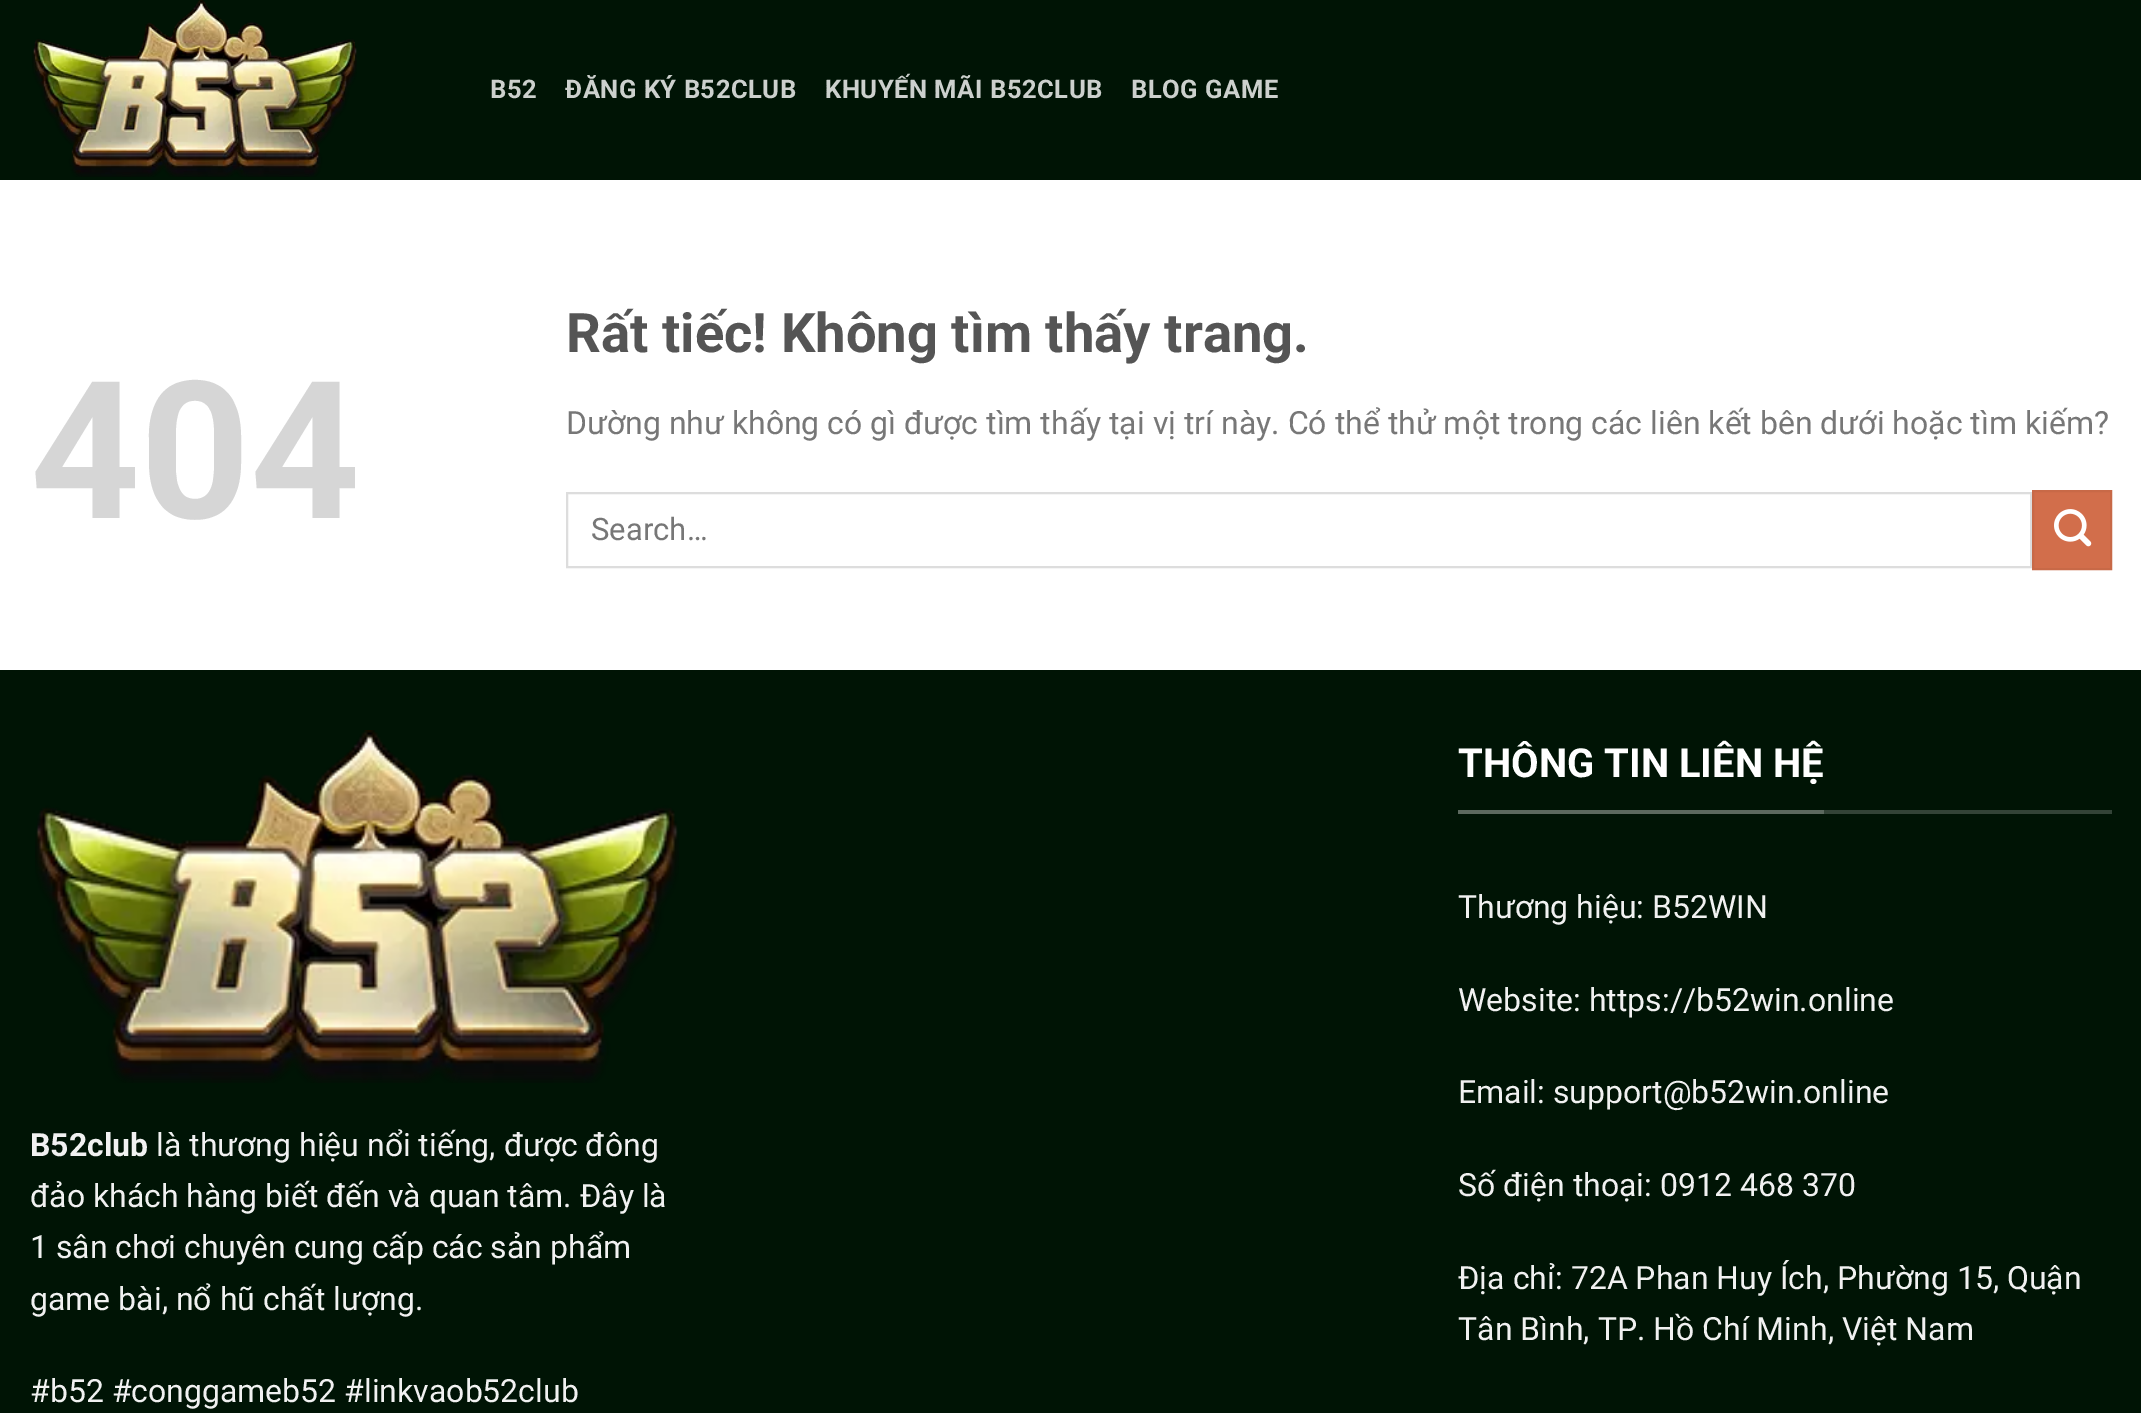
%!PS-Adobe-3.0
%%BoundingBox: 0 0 2141 1413
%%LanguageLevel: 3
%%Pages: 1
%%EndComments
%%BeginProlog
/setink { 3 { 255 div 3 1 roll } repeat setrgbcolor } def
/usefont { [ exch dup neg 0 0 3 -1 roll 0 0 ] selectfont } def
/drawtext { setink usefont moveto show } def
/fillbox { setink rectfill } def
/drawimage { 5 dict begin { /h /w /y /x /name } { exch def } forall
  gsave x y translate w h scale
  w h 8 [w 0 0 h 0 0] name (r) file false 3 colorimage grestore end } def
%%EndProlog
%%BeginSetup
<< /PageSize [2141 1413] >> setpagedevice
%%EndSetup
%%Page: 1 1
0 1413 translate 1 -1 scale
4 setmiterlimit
0 0 2141 1413 255 255 255 fillbox
0 0 2141 180 0 20 5 fillbox
(assets/img1.rgb) 32 0 325 177 drawimage
/Roboto-Bold 25.6 usefont
204 208 205 setink
490 98 moveto 0.5 0 (B52) ashow
565 98 moveto 0.5 0 (ĐĂNG KÝ B52CLUB) ashow
825 98 moveto 0.5 0 (KHUYẾN MÃI B52CLUB) ashow
1131 98 moveto 0.5 0 (BLOG GAME) ashow
(404) 30 518 /Roboto-Bold 192 214 214 214 drawtext
(Rất tiếc! Không tìm thấy trang.) 566 352 /Roboto-Bold 54.4 85 85 85 drawtext
(Dường như không có gì được tìm thấy tại vị trí này. Có thể thử một trong các liên kết bên dưới hoặc tìm kiếm?) 566 434 /Roboto-Regular 32 119 119 119 drawtext
221 221 221 setink
2 setlinewidth
567 493 1464 74 rectstroke
(Search…) 591 540 /Roboto-Regular 31 119 119 119 drawtext
210 110 75 setink
2033 491 moveto 2111 491 lineto 2111 569 lineto 2033 569 lineto closepath gsave fill grestore
200 105 71 setink
stroke
(assets/img2.rgb) 2054 509 38 38 drawimage
0 670 2141 743 0 20 5 fillbox
(assets/img3.rgb) 35 730 644 353 drawimage
(B52club) 30 1156 /Roboto-Bold 32 241 241 241 drawtext
(là thương hiệu nổi tiếng, được đông) 156 1156 /Roboto-Regular 32 241 241 241 drawtext
(đảo khách hàng biết đến và quan tâm. Đây là) 30 1207 /Roboto-Regular 32 241 241 241 drawtext
(1 sân chơi chuyên cung cấp các sản phẩm) 30 1258 /Roboto-Regular 32 241 241 241 drawtext
(game bài, nổ hũ chất lượng.) 30 1310 /Roboto-Regular 32 241 241 241 drawtext
(#b52 #conggameb52 #linkvaob52club) 30 1402 /Roboto-Regular 32 241 241 241 drawtext
1824 810 288 4 51 67 55 fillbox
1458 810 366 4 92 105 95 fillbox
(THÔNG TIN LIÊN HỆ) 1458 777 /Roboto-Bold 40 255 255 255 drawtext
(Thương hiệu: B52WIN) 1458 918 /Roboto-Regular 32 241 241 241 drawtext
(Website: https://b52win.online) 1458 1011 /Roboto-Regular 32 241 241 241 drawtext
(Email: support@b52win.online) 1458 1103 /Roboto-Regular 32 241 241 241 drawtext
(Số điện thoại: 0912 468 370) 1458 1196 /Roboto-Regular 32 241 241 241 drawtext
(Địa chỉ: 72A Phan Huy Ích, Phường 15, Quận) 1458 1289 /Roboto-Regular 32 241 241 241 drawtext
(Tân Bình, TP. Hồ Chí Minh, Việt Nam) 1458 1340 /Roboto-Regular 32 241 241 241 drawtext
showpage
%%EOF
